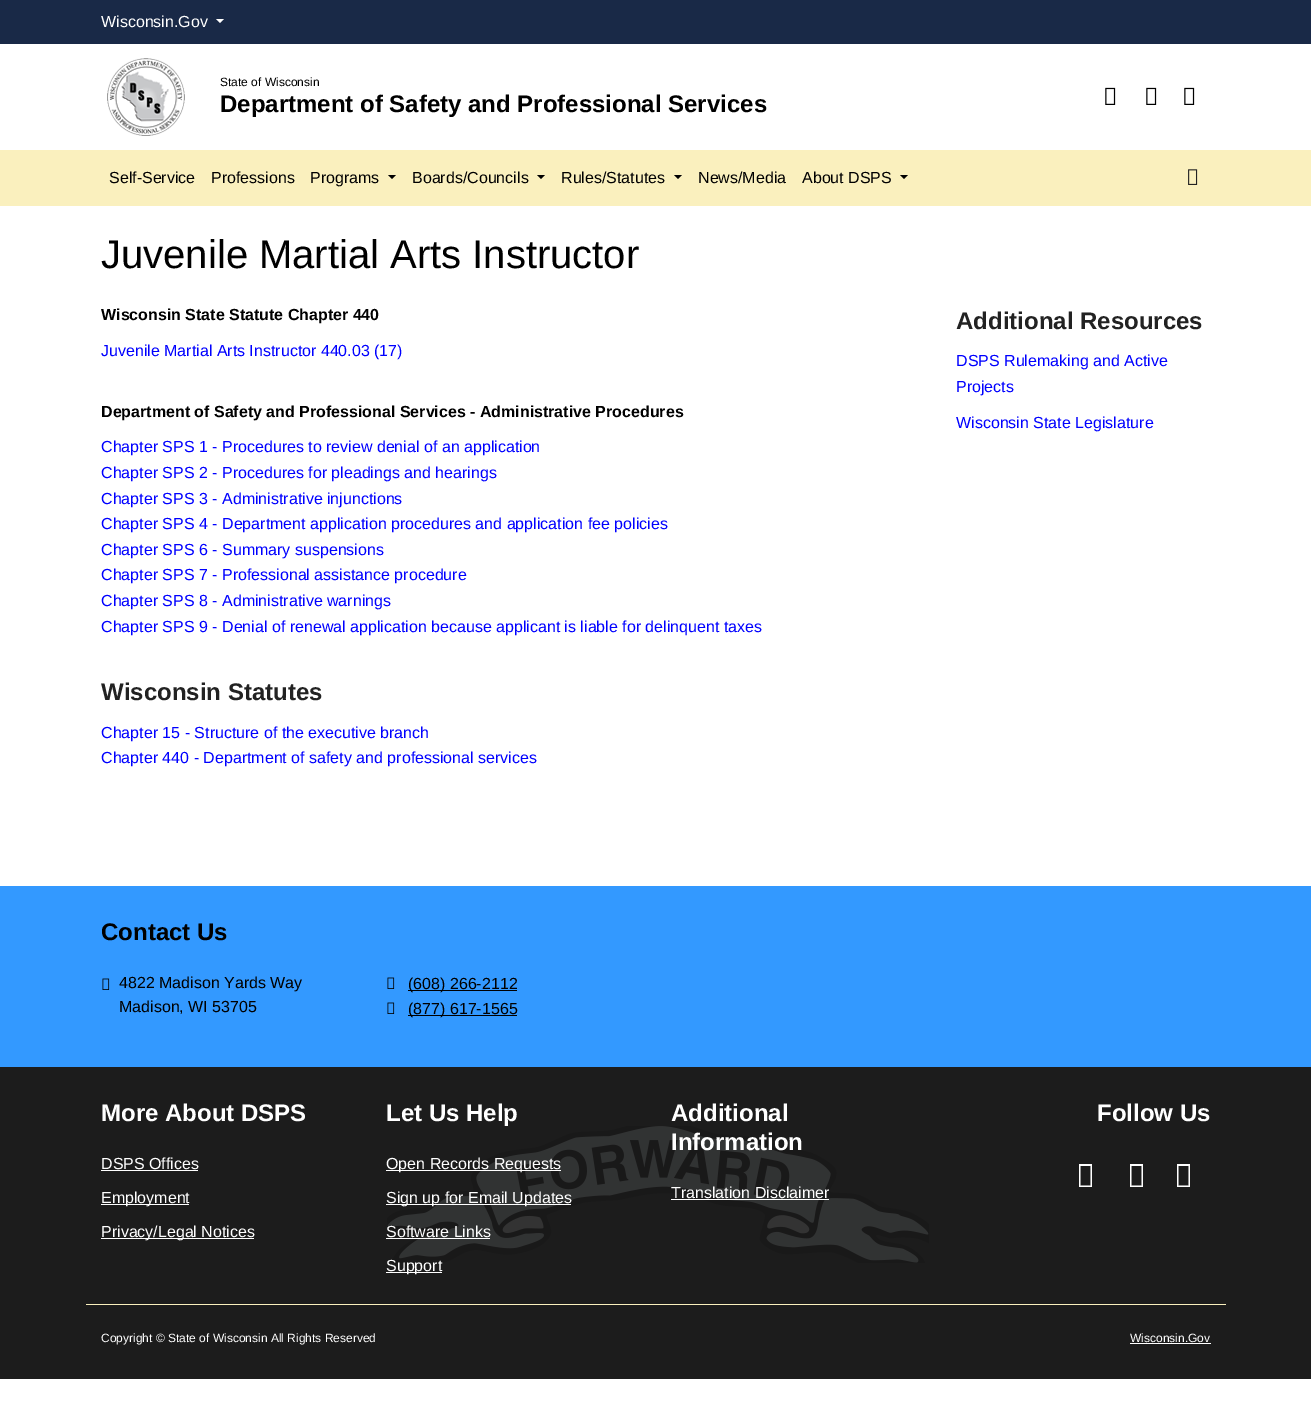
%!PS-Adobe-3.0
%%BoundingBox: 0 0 1311 1404
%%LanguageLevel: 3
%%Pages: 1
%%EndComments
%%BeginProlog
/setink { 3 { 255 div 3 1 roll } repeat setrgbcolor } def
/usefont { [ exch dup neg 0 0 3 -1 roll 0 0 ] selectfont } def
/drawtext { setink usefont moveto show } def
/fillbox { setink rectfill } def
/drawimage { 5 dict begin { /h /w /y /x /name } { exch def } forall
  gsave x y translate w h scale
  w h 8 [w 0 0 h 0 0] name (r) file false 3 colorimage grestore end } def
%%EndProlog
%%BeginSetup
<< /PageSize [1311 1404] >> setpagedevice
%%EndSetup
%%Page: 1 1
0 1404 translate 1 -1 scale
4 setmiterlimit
0 0 1311 1404 255 255 255 fillbox
0 0 1311 44 25 41 71 fillbox
(Wisconsin.Gov) 101 27 /LiberationSans-Regular 16 255 255 255 drawtext
216 19 moveto 224 19 lineto 220 23 lineto closepath fill
(assets/img1.rgb) 107 58 78 78 drawimage
(State of Wisconsin) 220 86 /LiberationSans-Regular 12 0 0 0 drawtext
(Department of Safety and Professional Services) 220 112 /LiberationSans-Bold 24 0 0 0 drawtext
(assets/img2.rgb) 1105 87 11 18 drawimage
(assets/img2.rgb) 1146 87 11 18 drawimage
(assets/img2.rgb) 1184 87 11 18 drawimage
0 150 1311 56 250 240 190 fillbox
(Self-Service) 109 183 /LiberationSans-Regular 16 0 0 0 drawtext
(Professions) 211 183 /LiberationSans-Regular 16 0 0 0 drawtext
(Programs) 310 183 /LiberationSans-Regular 16 0 0 0 drawtext
388 175 moveto 396 175 lineto 392 179 lineto closepath fill
(Boards/Councils) 412 183 /LiberationSans-Regular 16 0 0 0 drawtext
537 175 moveto 545 175 lineto 541 179 lineto closepath fill
(Rules/Statutes) 561 183 /LiberationSans-Regular 16 0 0 0 drawtext
674 175 moveto 682 175 lineto 678 179 lineto closepath fill
(News/Media) 698 183 /LiberationSans-Regular 16 0 0 0 drawtext
(About DSPS) 802 183 /LiberationSans-Regular 16 0 0 0 drawtext
900 175 moveto 908 175 lineto 904 179 lineto closepath fill
(assets/img3.rgb) 1188 169 10 16 drawimage
(Juvenile Martial Arts Instructor) 101 268 /LiberationSans-Regular 40 0 0 0 drawtext
(Wisconsin State Statute Chapter 440) 101 320 /LiberationSans-Bold 16 0 0 0 drawtext
(Juvenile Martial Arts Instructor 440.03 \(17\)) 101 356 /LiberationSans-Regular 16 0 0 255 drawtext
(Department of Safety and Professional Services - Administrative Procedures) 101 417 /LiberationSans-Bold 16 0 0 0 drawtext
(Chapter SPS 1 - Procedures to review denial of an application) 101 452 /LiberationSans-Regular 16 0 0 255 drawtext
(Chapter SPS 2 - Procedures for pleadings and hearings) 101 478 /LiberationSans-Regular 16 0 0 255 drawtext
(Chapter SPS 3 - Administrative injunctions) 101 504 /LiberationSans-Regular 16 0 0 255 drawtext
(Chapter SPS 4 - Department application procedures and application fee policies) 101 529 /LiberationSans-Regular 16 0 0 255 drawtext
(Chapter SPS 6 - Summary suspensions) 101 555 /LiberationSans-Regular 16 0 0 255 drawtext
(Chapter SPS 7 - Professional assistance procedure) 101 580 /LiberationSans-Regular 16 0 0 255 drawtext
(Chapter SPS 8 - Administrative warnings) 101 606 /LiberationSans-Regular 16 0 0 255 drawtext
(Chapter SPS 9 - Denial of renewal application because applicant is liable for delinquent taxes) 101 632 /LiberationSans-Regular 16 0 0 255 drawtext
(Wisconsin Statutes) 101 700 /LiberationSans-Bold 24 34 34 34 drawtext
(Chapter 15 - Structure of the executive branch) 101 738 /LiberationSans-Regular 16 0 0 255 drawtext
(Chapter 440 - Department of safety and professional services) 101 763 /LiberationSans-Regular 16 0 0 255 drawtext
(Additional Resources) 956 329 /LiberationSans-Bold 24 34 34 34 drawtext
(DSPS Rulemaking and Active) 956 366 /LiberationSans-Regular 16 0 0 255 drawtext
(Projects) 956 392 /LiberationSans-Regular 16 0 0 255 drawtext
(Wisconsin State Legislature) 956 428 /LiberationSans-Regular 16 0 0 255 drawtext
0 886 1311 181 51 153 255 fillbox
(Contact Us) 101 940 /LiberationSans-Bold 24 0 0 0 drawtext
(assets/img4.rgb) 102 978 8 12 drawimage
(4822 Madison Yards Way) 119 988 /LiberationSans-Regular 16 0 0 0 drawtext
(Madison, WI 53705) 119 1012 /LiberationSans-Regular 16 0 0 0 drawtext
(assets/img4.rgb) 387 977 8 12 drawimage
408 990 109 1 0 0 0 fillbox
(\(608\) 266-2112) 408 989 /LiberationSans-Regular 16 0 0 0 drawtext
(assets/img4.rgb) 387 1002 8 12 drawimage
408 1015 109 1 0 0 0 fillbox
(\(877\) 617-1565) 408 1014 /LiberationSans-Regular 16 0 0 0 drawtext
0 1067 1311 312 28 28 28 fillbox
(assets/img5.rgb) 387 1126 542 137 drawimage
(More About DSPS) 101 1121 /LiberationSans-Bold 24 255 255 255 drawtext
(DSPS Offices) 101 1169 /LiberationSans-Regular 16 255 255 255 drawtext
101 1170 97 1 255 255 255 fillbox
101 1204 88 1 255 255 255 fillbox
(Employment) 101 1203 /LiberationSans-Regular 16 255 255 255 drawtext
101 1238 153 1 255 255 255 fillbox
(Privacy/Legal Notices) 101 1237 /LiberationSans-Regular 16 255 255 255 drawtext
(Let Us Help) 386 1121 /LiberationSans-Bold 24 255 255 255 drawtext
386 1170 175 1 255 255 255 fillbox
(Open Records Requests) 386 1169 /LiberationSans-Regular 16 255 255 255 drawtext
386 1204 185 1 255 255 255 fillbox
(Sign up for Email Updates) 386 1203 /LiberationSans-Regular 16 255 255 255 drawtext
(Software Links) 386 1237 /LiberationSans-Regular 16 255 255 255 drawtext
386 1238 104 1 255 255 255 fillbox
386 1272 56 1 255 255 255 fillbox
(Support) 386 1271 /LiberationSans-Regular 16 255 255 255 drawtext
(Additional) 671 1121 /LiberationSans-Bold 24 255 255 255 drawtext
(Information) 671 1150 /LiberationSans-Bold 24 255 255 255 drawtext
(Translation Disclaimer) 671 1198 /LiberationSans-Regular 16 255 255 255 drawtext
671 1199 158 1 255 255 255 fillbox
(Follow Us) 1097 1121 /LiberationSans-Bold 24 255 255 255 drawtext
1079 1187 moveto 1079 1164 lineto 1092 1164 lineto 1092 1187 lineto closepath 1080.5 1185.5 moveto 1090.5 1185.5 lineto 1090.5 1166 lineto 1080.5 1166 lineto closepath fill
1130 1187 moveto 1130 1164 lineto 1143 1164 lineto 1143 1187 lineto closepath 1131.5 1185.5 moveto 1141.5 1185.5 lineto 1141.5 1166 lineto 1131.5 1166 lineto closepath 1177 1187 moveto 1177 1164 lineto 1190 1164 lineto 1190 1187 lineto closepath 1178.5 1185.5 moveto 1188.5 1185.5 lineto 1188.5 1166 lineto 1178.5 1166 lineto closepath fill
86 1304 1140 1 250 240 190 fillbox
(Copyright © State of Wisconsin All Rights Reserved) 101 1342 /LiberationSans-Regular 12 255 255 255 drawtext
(Wisconsin.Gov) 1130 1342 /LiberationSans-Regular 12 255 255 255 drawtext
1130 1343 81 1 255 255 255 fillbox
showpage
%%EOF
